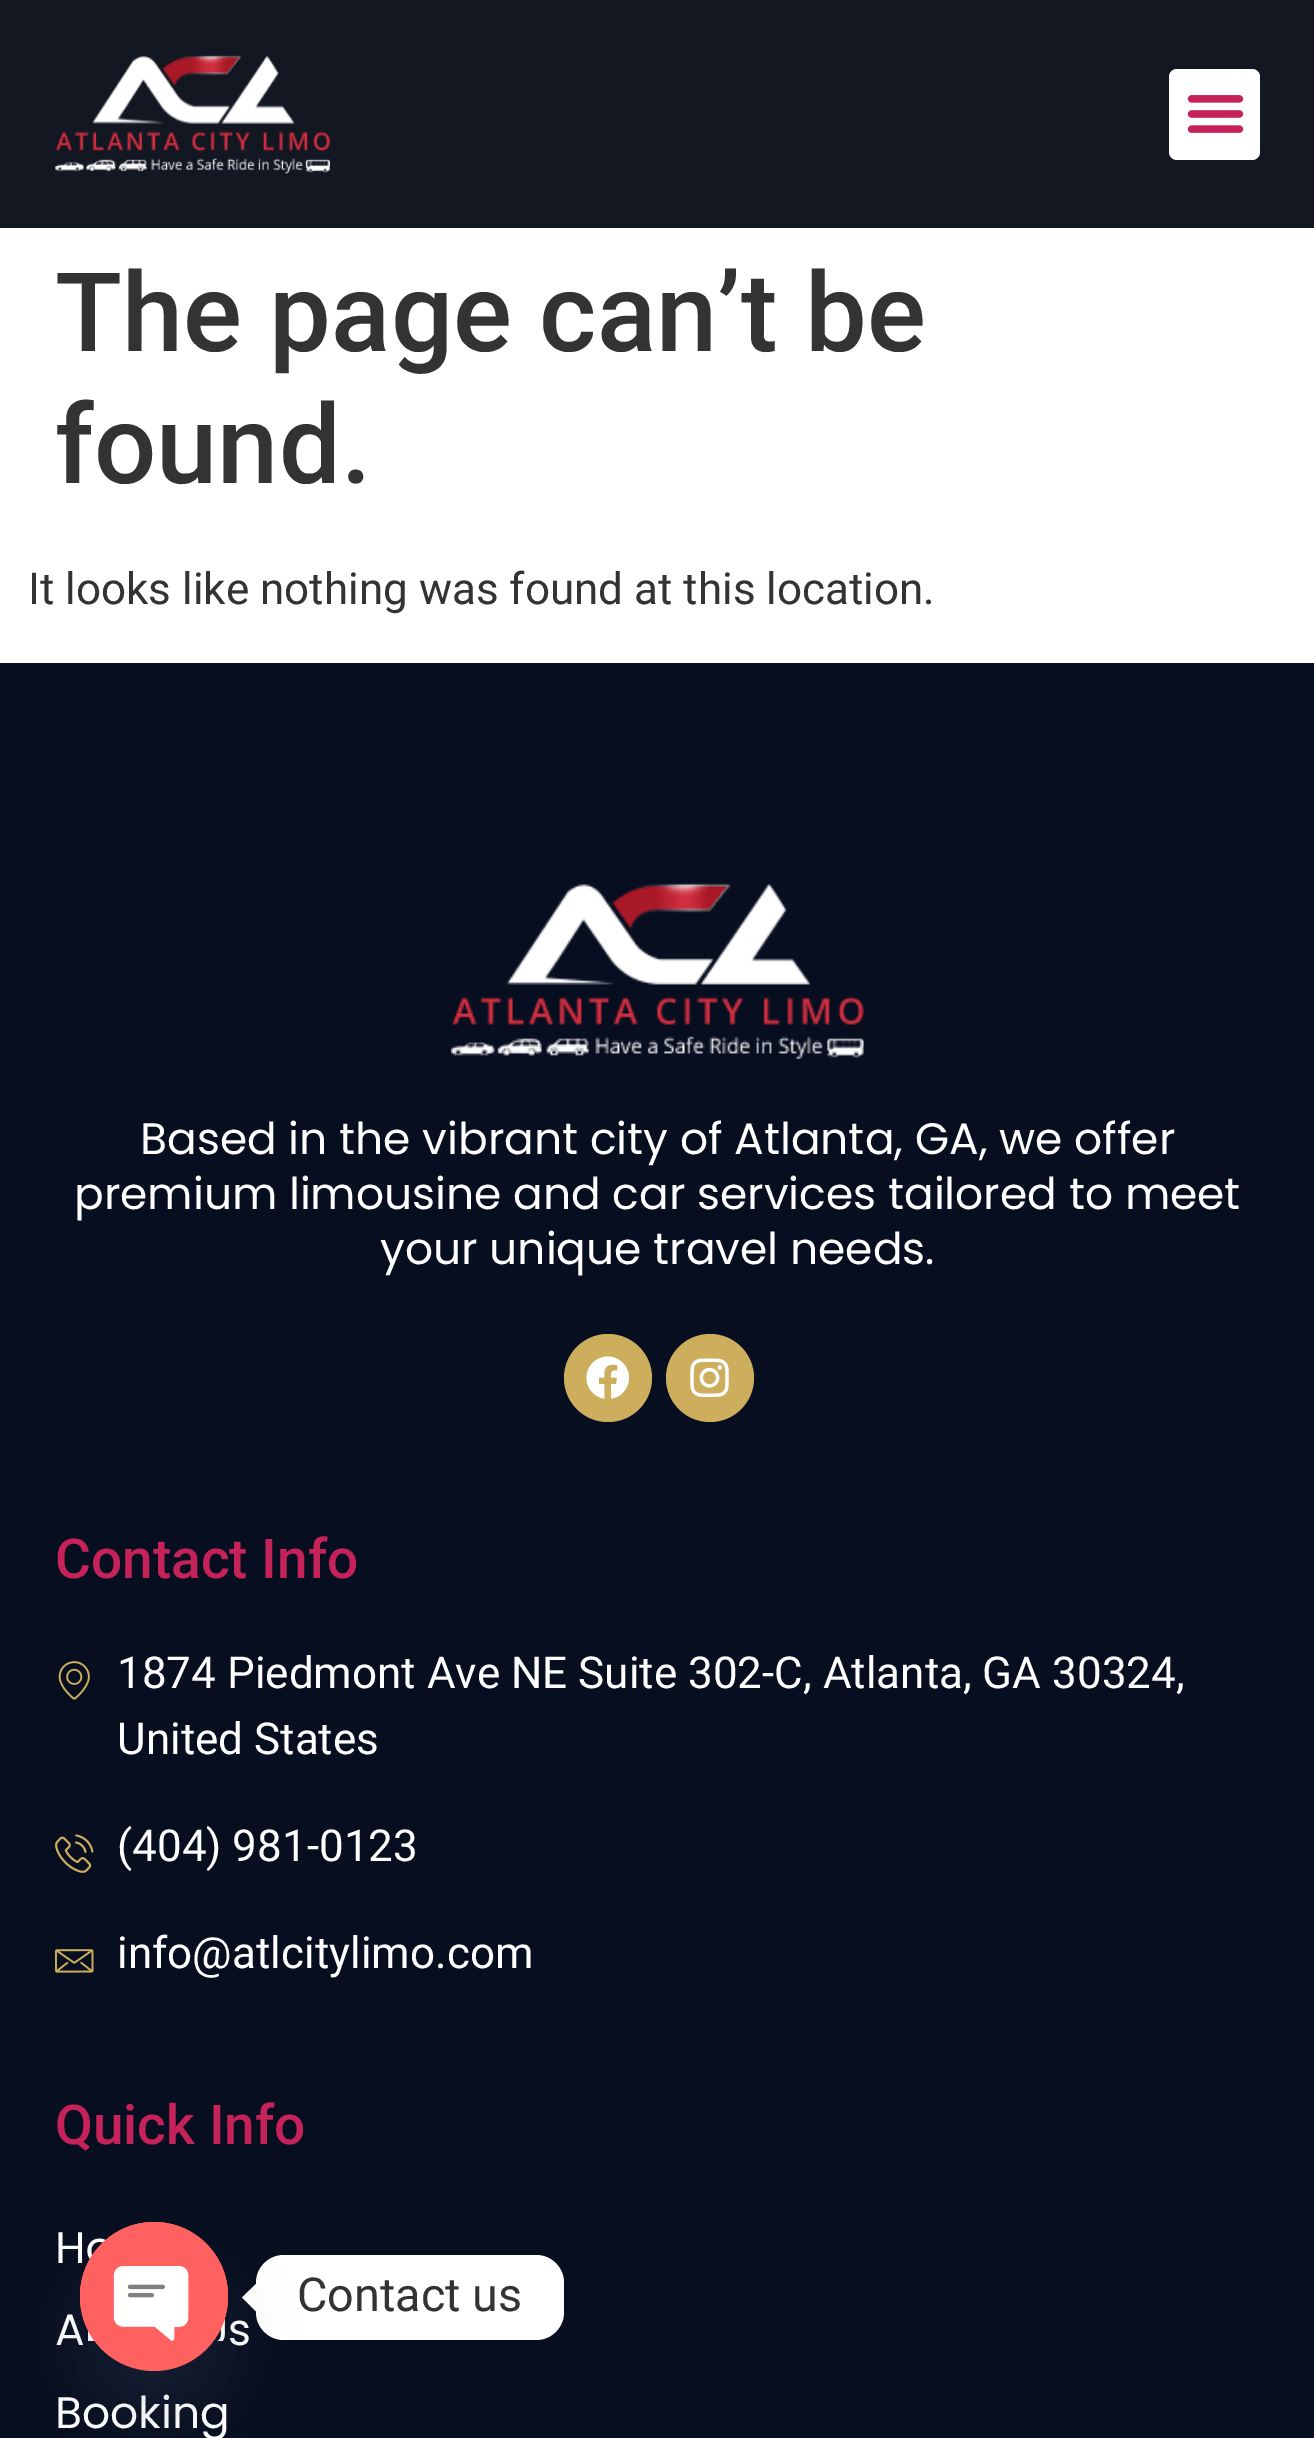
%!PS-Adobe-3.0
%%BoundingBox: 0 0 1314 2438
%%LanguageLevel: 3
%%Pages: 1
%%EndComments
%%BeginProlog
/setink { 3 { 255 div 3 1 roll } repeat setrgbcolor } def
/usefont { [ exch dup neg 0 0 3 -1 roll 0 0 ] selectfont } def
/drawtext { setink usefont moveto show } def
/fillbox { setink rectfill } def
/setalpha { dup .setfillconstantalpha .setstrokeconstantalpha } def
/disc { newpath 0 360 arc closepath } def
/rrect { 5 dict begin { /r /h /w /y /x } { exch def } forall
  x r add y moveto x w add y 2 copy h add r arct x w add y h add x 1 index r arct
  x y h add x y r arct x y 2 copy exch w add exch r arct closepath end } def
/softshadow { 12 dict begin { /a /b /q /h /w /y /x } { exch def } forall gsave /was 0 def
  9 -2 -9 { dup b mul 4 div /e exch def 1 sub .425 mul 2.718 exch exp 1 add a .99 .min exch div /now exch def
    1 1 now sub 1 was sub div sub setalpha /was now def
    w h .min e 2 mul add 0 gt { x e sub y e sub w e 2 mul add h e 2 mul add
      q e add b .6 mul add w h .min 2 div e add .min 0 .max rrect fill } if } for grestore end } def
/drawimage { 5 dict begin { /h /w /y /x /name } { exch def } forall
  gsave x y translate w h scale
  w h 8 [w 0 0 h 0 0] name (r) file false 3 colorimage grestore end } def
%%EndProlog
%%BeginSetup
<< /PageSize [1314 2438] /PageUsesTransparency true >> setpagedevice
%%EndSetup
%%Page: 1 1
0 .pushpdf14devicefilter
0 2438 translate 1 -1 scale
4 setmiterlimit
0 0 1314 2438 255 255 255 fillbox
0 0 1314 228 18 23 34 fillbox
(assets/img1.rgb) 55 55 275 119 drawimage
255 255 255 setink
1169 69 91 91 8 rrect fill
(assets/img2.rgb) 1187 95 57 38 drawimage
(The page can’t be) 55 351 /Roboto-Medium 110 51 51 51 drawtext
(found.) 55 483 /Roboto-Medium 110 51 51 51 drawtext
(It looks like nothing was found at this location.) 28 604 /Roboto-Regular 44 51 51 51 drawtext
0 663 1314 1775 7 14 32 fillbox
(assets/img3.rgb) 451 883 413 176 drawimage
(Based in the vibrant city of Atlanta, GA, we offer) 140 1154 /Poppins-Regular 44 255 255 255 drawtext
(premium limousine and car services tailored to meet) 74 1209 /Poppins-Regular 44 255 255 255 drawtext
(your unique travel needs.) 380 1264 /Poppins-Regular 44 255 255 255 drawtext
204 174 93 setink
608 1378 44 disc fill
(assets/img4.rgb) 586 1356 44 43 drawimage
710 1378 44 disc fill
(assets/img5.rgb) 690 1358 39 39 drawimage
(Contact Info) 55 1578 /Roboto-Medium 55 196 34 88 drawtext
(assets/img6.rgb) 58 1661 32 39 drawimage
(1874 Piedmont Ave NE Suite 302-C, Atlanta, GA 30324,) 117 1688 /Roboto-Regular 44 255 255 255 drawtext
(United States) 117 1754 /Roboto-Regular 44 255 255 255 drawtext
(assets/img7.rgb) 55 1834 39 39 drawimage
(\(404\) 981-0123) 117 1861 /Roboto-Regular 44 255 255 255 drawtext
(assets/img8.rgb) 55 1949 39 24 drawimage
(info@atlcitylimo.com) 117 1968 /Roboto-Regular 44 255 255 255 drawtext
(Quick Info) 55 2144 /Roboto-Medium 55 196 34 88 drawtext
(H) 55 2263 /Poppins-Regular 44 255 255 255 drawtext
(A) 55 2345 /Poppins-Regular 44 255 255 255 drawtext
(s) 228 2345 /Poppins-Regular 44 255 255 255 drawtext
(Booking) 55 2428 /Poppins-Regular 44 255 255 255 drawtext
256 2255 308 85 28 rrect fill
256 2284 moveto 256 2311.5 lineto 242 2297.5 lineto closepath fill
73 104 126 setink
80 2266 148 149 74 33 0.16 softshadow
255 96 96 setink
80 2222 148 149 74 rrect fill
(assets/img9.rgb) 80 2222 148 119 drawimage
(Contact us) 297 2311 /Roboto-Regular 46.75 51 51 51 drawtext
.poppdf14devicefilter showpage
%%EOF
